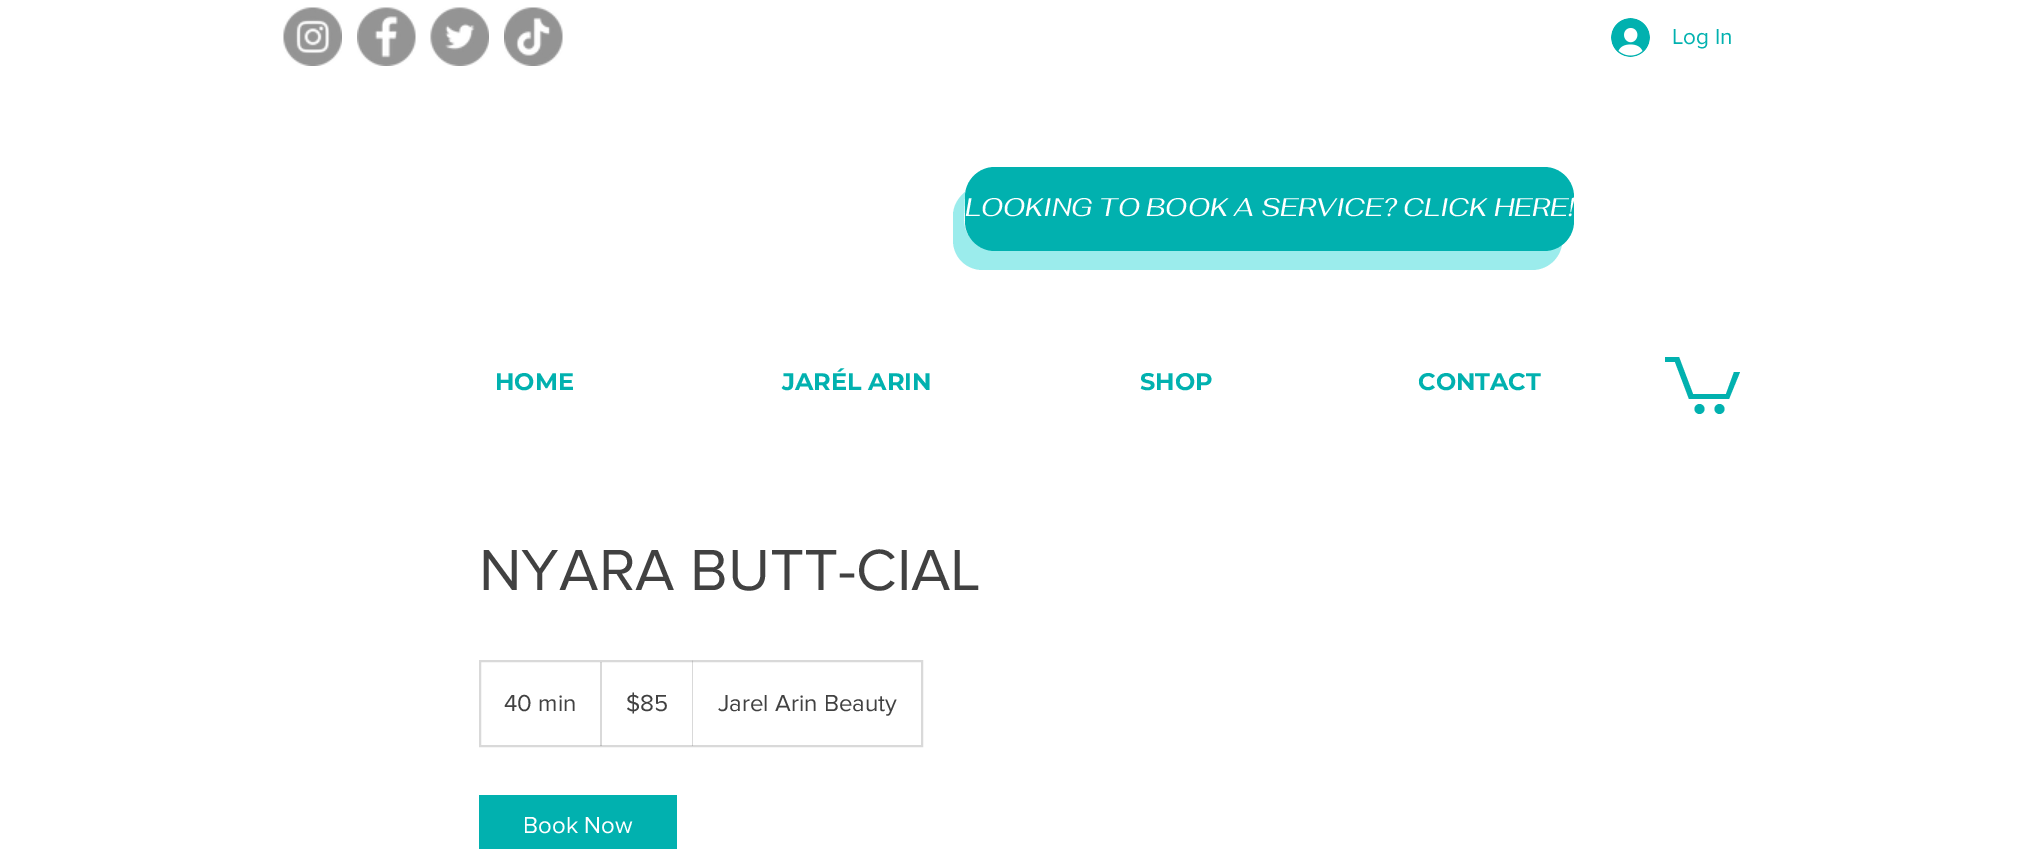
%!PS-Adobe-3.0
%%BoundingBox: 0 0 2037 849
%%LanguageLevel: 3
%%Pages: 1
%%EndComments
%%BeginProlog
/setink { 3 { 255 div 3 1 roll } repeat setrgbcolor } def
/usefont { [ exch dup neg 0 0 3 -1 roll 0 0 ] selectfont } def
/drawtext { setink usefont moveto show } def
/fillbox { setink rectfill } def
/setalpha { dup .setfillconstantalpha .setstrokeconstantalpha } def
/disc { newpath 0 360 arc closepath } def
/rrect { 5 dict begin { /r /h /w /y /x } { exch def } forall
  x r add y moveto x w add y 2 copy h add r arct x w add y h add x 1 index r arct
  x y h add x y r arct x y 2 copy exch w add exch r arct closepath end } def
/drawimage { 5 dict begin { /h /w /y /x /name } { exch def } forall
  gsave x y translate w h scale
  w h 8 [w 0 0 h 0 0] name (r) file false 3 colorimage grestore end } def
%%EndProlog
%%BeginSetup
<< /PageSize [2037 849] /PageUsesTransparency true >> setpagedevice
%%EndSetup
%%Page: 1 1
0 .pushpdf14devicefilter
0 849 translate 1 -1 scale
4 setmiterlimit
0 0 2037 849 255 255 255 fillbox
(assets/img1.rgb) 283 7 59 59 drawimage
(assets/img2.rgb) 357 7 59 59 drawimage
(assets/img3.rgb) 430 7 59 59 drawimage
(assets/img4.rgb) 504 7 59 59 drawimage
(assets/img5.rgb) 1611 18 39 39 drawimage
(Log In) 1672 44 /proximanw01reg-Regular 22.5 1 177 175 drawtext
155 236 236 setink
965 192 moveto 958 198 953 206 953 216 curveto 953 240 lineto 953 257 966 270 983 270 curveto 1532 270 lineto 1547 270 1560 259 1562 244 curveto 1557 248 1550 250 1544 250 curveto 994 250 lineto 978 250 964 237 964 220 curveto closepath fill
1 177 175 setink
965 167 609 84 30 rrect fill
(LOOKING TO BOOK A SERVICE? CLICK HERE!) 965 216 /Fahkwang-Italic 25.5 255 255 255 drawtext
(HOME) 495 390 /Montserrat-Bold 24 1 177 175 drawtext
(JARÉL ARIN) 782 390 /Montserrat-Bold 24 1 177 175 drawtext
(SHOP) 1140 390 /Montserrat-Bold 24 1 177 175 drawtext
(CONTACT) 1418 390 /Montserrat-Bold 24 1 177 175 drawtext
1740 372 moveto 1729 399 lineto 1689 399 lineto 1675 362 lineto 1665 362 lineto 1665 357 lineto 1679 357 lineto 1693 394 lineto 1726 394 lineto 1734 372 lineto fill
1719.5 409 5 disc fill
1699.5 409 5 disc fill
(NYARA BUTT-CIAL) 479 590 /proximanw01reg-Regular 60 65 65 65 drawtext
217 217 217 setink
2 setlinewidth
480 661 442 85 rectstroke
(40 min) 504 711 /proximanw01reg-Regular 24 65 65 65 drawtext
gsave
480 662 441 84 rectclip
0.2 setalpha
600 746 moveto 600 660 lineto 602 662 lineto 602 746 lineto closepath fill
grestore
($85) 626 711 /proximanw01reg-Regular 24 65 65 65 drawtext
0.2 setalpha
692 746 moveto 692 660 lineto 693 662 lineto 693 746 lineto closepath fill
1 setalpha
(Jarel Arin Beauty) 718 711 /proximanw01reg-Regular 24 65 65 65 drawtext
479 795 198 54 1 177 175 fillbox
(Book Now) 523 833 /proximanw01reg-Regular 24 255 255 255 drawtext
.poppdf14devicefilter showpage
%%EOF
